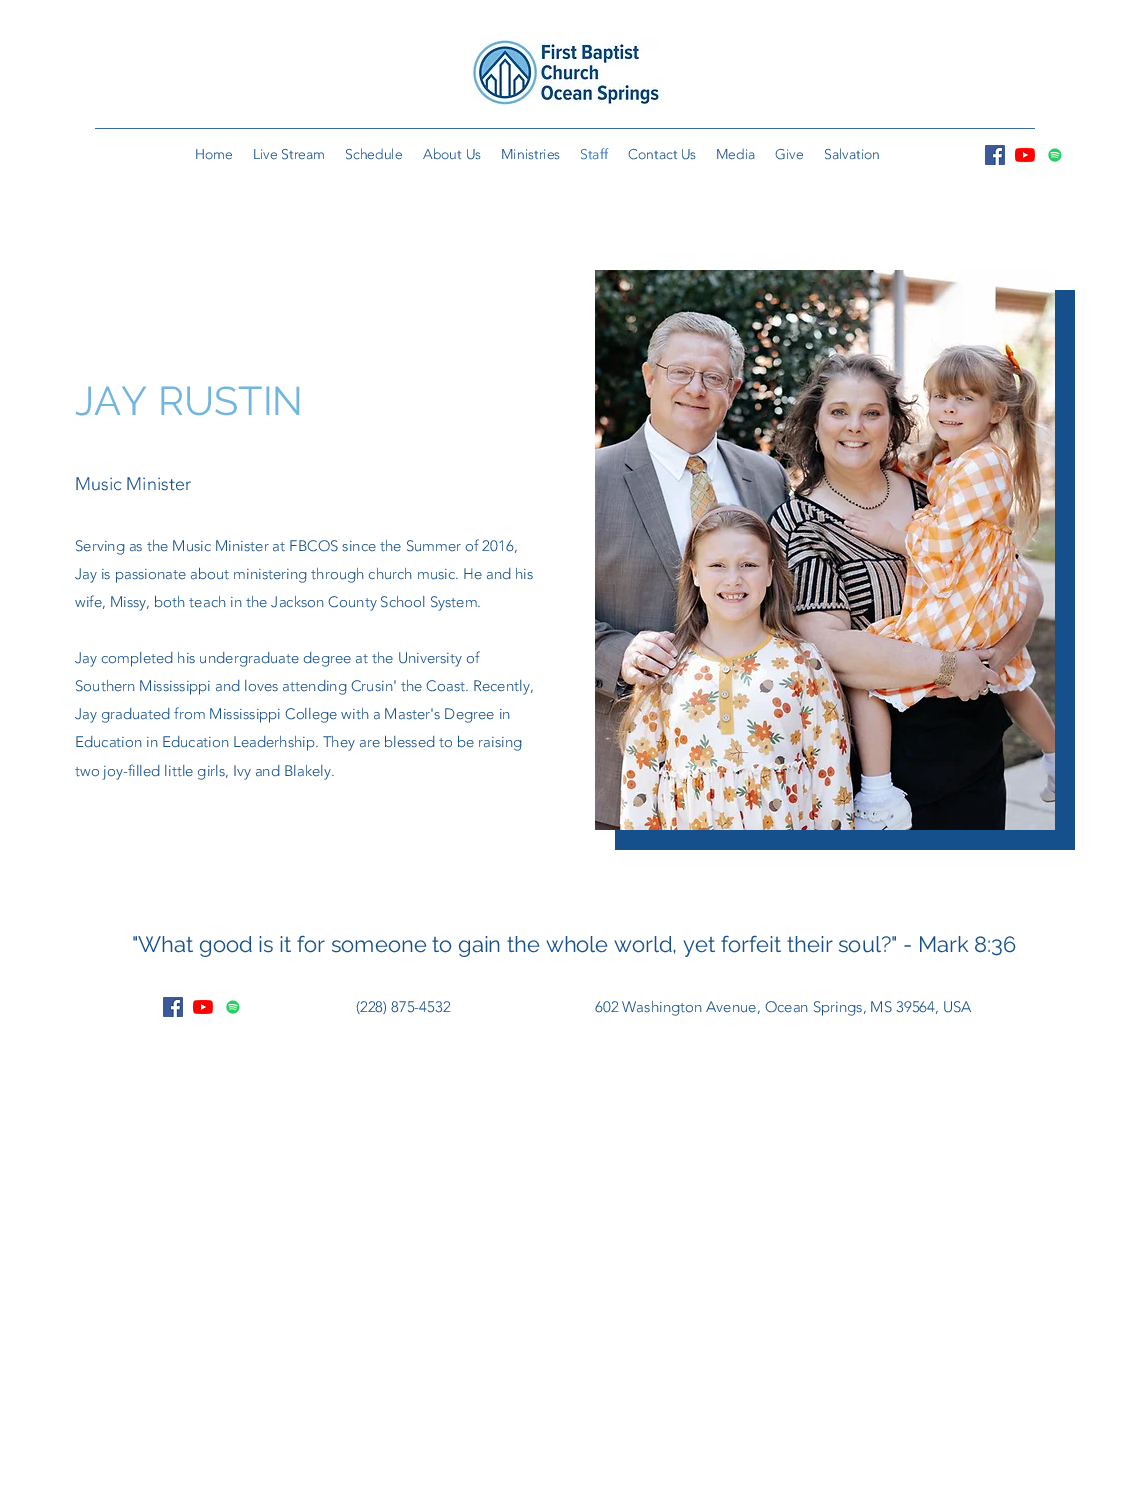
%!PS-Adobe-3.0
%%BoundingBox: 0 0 1130 1497
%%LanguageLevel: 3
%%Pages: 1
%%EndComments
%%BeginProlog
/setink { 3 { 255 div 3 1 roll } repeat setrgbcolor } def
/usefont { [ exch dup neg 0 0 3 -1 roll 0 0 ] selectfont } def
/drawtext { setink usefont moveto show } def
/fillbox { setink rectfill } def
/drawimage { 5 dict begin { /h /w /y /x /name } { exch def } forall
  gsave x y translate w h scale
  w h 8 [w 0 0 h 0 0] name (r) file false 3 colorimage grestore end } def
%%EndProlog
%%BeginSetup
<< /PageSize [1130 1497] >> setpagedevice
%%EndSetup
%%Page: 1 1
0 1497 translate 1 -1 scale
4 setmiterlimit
0 0 1130 1497 255 255 255 fillbox
(assets/img1.rgb) 467 35 193 72 drawimage
95 128 940 1 56 106 157 fillbox
(Home) 195 159 /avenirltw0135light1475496-Light 14 21 80 140 drawtext
(Live Stream) 253 159 /avenirltw0135light1475496-Light 14 21 80 140 drawtext
(Schedule) 345 159 /avenirltw0135light1475496-Light 14 21 80 140 drawtext
(About Us) 423 159 /avenirltw0135light1475496-Light 14 21 80 140 drawtext
(Ministries) 501 159 /avenirltw0135light1475496-Light 14 21 80 140 drawtext
(Staff) 580 159 /avenirltw0135light1475496-Light 14 28 105 184 drawtext
(Contact Us) 628 159 /avenirltw0135light1475496-Light 14 21 80 140 drawtext
(Media) 716 159 /avenirltw0135light1475496-Light 14 21 80 140 drawtext
(Give) 775 159 /avenirltw0135light1475496-Light 14 21 80 140 drawtext
(Salvation) 824 159 /avenirltw0135light1475496-Light 14 21 80 140 drawtext
(assets/img2.rgb) 985 145 20 20 drawimage
(assets/img3.rgb) 1015 147 20 16 drawimage
(assets/img4.rgb) 1048 148 14 14 drawimage
(JAY RUSTIN) 75 415 /Raleway-Regular 40 114 182 221 drawtext
(Music Minister) 75 490 /avenirltw0135light1475496-Light 18 21 80 140 drawtext
(Serving as the Music Minister at FBCOS since the Summer of 2016,) 75 551 /avenirltw0135light1475496-Light 15 21 80 140 drawtext
(Jay is passionate about ministering through church music. He and his) 75 579 /avenirltw0135light1475496-Light 15 21 80 140 drawtext
(wife, Missy, both teach in the Jackson County School System.) 75 607 /avenirltw0135light1475496-Light 15 21 80 140 drawtext
(Jay completed his undergraduate degree at the University of) 75 663 /avenirltw0135light1475496-Light 15 21 80 140 drawtext
(Southern Mississippi and loves attending Crusin' the Coast. Recently,) 75 691 /avenirltw0135light1475496-Light 15 21 80 140 drawtext
(Jay graduated from Mississippi College with a Master's Degree in) 75 719 /avenirltw0135light1475496-Light 15 21 80 140 drawtext
(Education in Education Leaderhship. They are blessed to be raising) 75 747 /avenirltw0135light1475496-Light 15 21 80 140 drawtext
(two joy-filled little girls, Ivy and Blakely.) 75 776 /avenirltw0135light1475496-Light 15 21 80 140 drawtext
615 290 460 560 21 80 140 fillbox
(assets/img5.rgb) 595 270 460 560 drawimage
("What good is it for someone to gain the whole world, yet forfeit their soul?" - Mark 8:36) 132 952 /Raleway-Regular 22 21 80 140 drawtext
(assets/img2.rgb) 163 997 20 20 drawimage
(assets/img3.rgb) 193 999 20 16 drawimage
(assets/img4.rgb) 226 1000 14 14 drawimage
(\(228\) 875-4532) 356 1012 /avenirltw0135light1475496-Light 15 21 80 140 drawtext
(602 Washington Avenue, Ocean Springs, MS 39564, USA) 595 1012 /avenirltw0135light1475496-Light 15 21 80 140 drawtext
showpage
%%EOF
